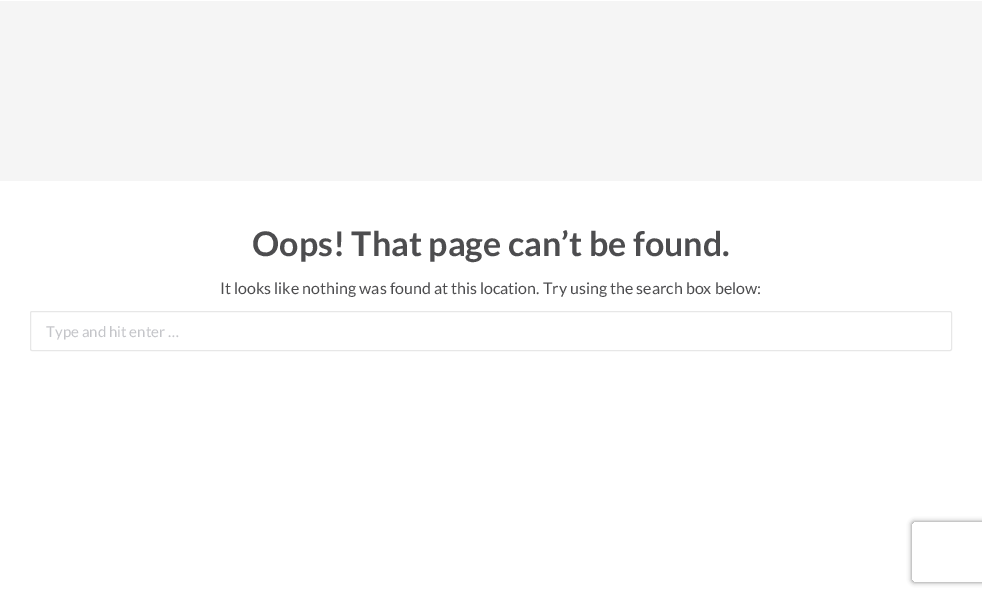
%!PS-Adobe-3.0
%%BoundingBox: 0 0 982 596
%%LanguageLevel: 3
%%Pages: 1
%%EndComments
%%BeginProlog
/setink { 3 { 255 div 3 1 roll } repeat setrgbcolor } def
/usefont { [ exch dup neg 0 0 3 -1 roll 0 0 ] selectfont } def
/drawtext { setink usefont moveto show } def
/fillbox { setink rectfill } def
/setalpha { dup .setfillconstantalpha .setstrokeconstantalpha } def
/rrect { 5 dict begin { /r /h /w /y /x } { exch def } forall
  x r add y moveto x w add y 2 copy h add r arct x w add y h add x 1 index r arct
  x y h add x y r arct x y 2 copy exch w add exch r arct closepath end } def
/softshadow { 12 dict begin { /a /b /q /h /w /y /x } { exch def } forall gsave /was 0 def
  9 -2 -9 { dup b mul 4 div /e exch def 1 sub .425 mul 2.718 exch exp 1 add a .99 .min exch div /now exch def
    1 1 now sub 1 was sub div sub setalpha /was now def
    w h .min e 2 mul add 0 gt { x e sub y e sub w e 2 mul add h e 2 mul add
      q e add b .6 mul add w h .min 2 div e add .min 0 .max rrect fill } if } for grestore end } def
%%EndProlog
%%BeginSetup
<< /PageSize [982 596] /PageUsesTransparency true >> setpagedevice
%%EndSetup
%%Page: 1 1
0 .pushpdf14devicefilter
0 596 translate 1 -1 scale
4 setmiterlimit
0 0 982 596 255 255 255 fillbox
0 1 982 180 245 245 245 fillbox
(Oops! That page can’t be found.) 252 256 /Lato-Bold 34 77 77 79 drawtext
(It looks like nothing was found at this location. Try using the search box below:) 220 294 /Lato-Regular 16 77 77 79 drawtext
231 231 231 setink
30.5 311.5 921 39 1.5 rrect stroke
(Type and hit enter …) 46 337 /Lato-Regular 15 196 197 201 drawtext
gsave
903 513 moveto 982 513 lineto 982 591 lineto 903 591 lineto closepath 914 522 moveto 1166 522 lineto 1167 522 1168 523 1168 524 curveto 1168 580 lineto 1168 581 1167 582 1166 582 curveto 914 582 lineto 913 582 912 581 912 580 curveto 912 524 lineto 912 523 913 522 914 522 curveto closepath eoclip newpath
128 128 128 setink
912 522 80 60 2 2.5 1 softshadow
grestore
.poppdf14devicefilter showpage
%%EOF
